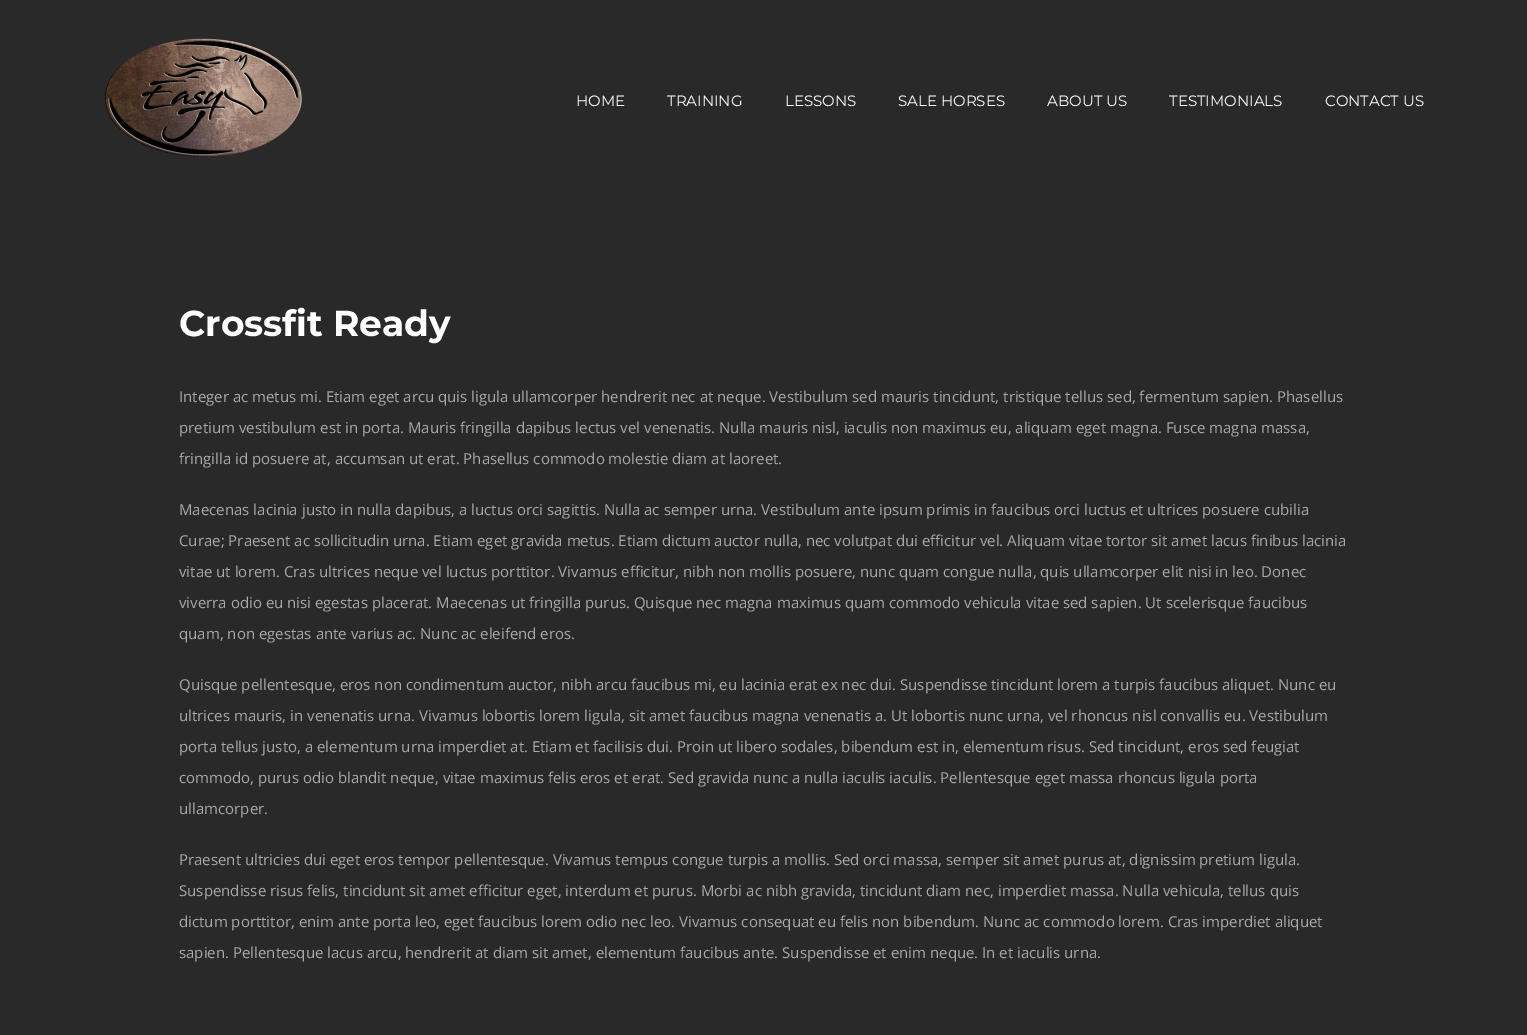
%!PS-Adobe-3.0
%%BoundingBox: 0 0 1527 1035
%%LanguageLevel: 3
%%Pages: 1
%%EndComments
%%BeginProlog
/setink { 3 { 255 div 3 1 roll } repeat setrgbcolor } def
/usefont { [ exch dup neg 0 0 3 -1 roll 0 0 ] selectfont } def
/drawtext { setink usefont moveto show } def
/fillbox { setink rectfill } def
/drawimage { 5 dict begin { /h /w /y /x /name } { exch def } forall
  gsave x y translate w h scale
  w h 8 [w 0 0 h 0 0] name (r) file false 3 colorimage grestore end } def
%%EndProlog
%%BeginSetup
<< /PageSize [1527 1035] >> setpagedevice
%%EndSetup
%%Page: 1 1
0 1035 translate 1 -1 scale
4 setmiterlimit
0 0 1527 1035 41 41 42 fillbox
(assets/img1.rgb) 105 38 197 119 drawimage
(HOME) 576 106 /Montserrat-Regular 15 255 255 255 drawtext
(TRAINING) 667 106 /Montserrat-Regular 15 255 255 255 drawtext
(LESSONS) 785 106 /Montserrat-Regular 15 255 255 255 drawtext
(SALE HORSES) 898 106 /Montserrat-Regular 15 255 255 255 drawtext
(ABOUT US) 1047 106 /Montserrat-Regular 15 255 255 255 drawtext
(TESTIMONIALS) 1169 106 /Montserrat-Regular 15 255 255 255 drawtext
(CONTACT US) 1325 106 /Montserrat-Regular 15 255 255 255 drawtext
(Crossfit Ready) 179 336 /Montserrat-Bold 36 255 255 255 drawtext
(Integer ac metus mi. Etiam eget arcu quis ligula ullamcorper hendrerit nec at neque. Vestibulum sed mauris tincidunt, tristique tellus sed, fermentum sapien. Phasellus) 179 402 /OpenSans-Regular 15 170 169 169 drawtext
(pretium vestibulum est in porta. Mauris fringilla dapibus lectus vel venenatis. Nulla mauris nisl, iaculis non maximus eu, aliquam eget magna. Fusce magna massa,) 179 433 /OpenSans-Regular 15 170 169 169 drawtext
(fringilla id posuere at, accumsan ut erat. Phasellus commodo molestie diam at laoreet.) 179 464 /OpenSans-Regular 15 170 169 169 drawtext
(Maecenas lacinia justo in nulla dapibus, a luctus orci sagittis. Nulla ac semper urna. Vestibulum ante ipsum primis in faucibus orci luctus et ultrices posuere cubilia) 179 515 /OpenSans-Regular 15 170 169 169 drawtext
(Curae; Praesent ac sollicitudin urna. Etiam eget gravida metus. Etiam dictum auctor nulla, nec volutpat dui efficitur vel. Aliquam vitae tortor sit amet lacus finibus lacinia) 179 546 /OpenSans-Regular 15 170 169 169 drawtext
(vitae ut lorem. Cras ultrices neque vel luctus porttitor. Vivamus efficitur, nibh non mollis posuere, nunc quam congue nulla, quis ullamcorper elit nisi in leo. Donec) 179 577 /OpenSans-Regular 15 170 169 169 drawtext
(viverra odio eu nisi egestas placerat. Maecenas ut fringilla purus. Quisque nec magna maximus quam commodo vehicula vitae sed sapien. Ut scelerisque faucibus) 179 608 /OpenSans-Regular 15 170 169 169 drawtext
(quam, non egestas ante varius ac. Nunc ac eleifend eros.) 179 639 /OpenSans-Regular 15 170 169 169 drawtext
(Quisque pellentesque, eros non condimentum auctor, nibh arcu faucibus mi, eu lacinia erat ex nec dui. Suspendisse tincidunt lorem a turpis faucibus aliquet. Nunc eu) 179 690 /OpenSans-Regular 15 170 169 169 drawtext
(ultrices mauris, in venenatis urna. Vivamus lobortis lorem ligula, sit amet faucibus magna venenatis a. Ut lobortis nunc urna, vel rhoncus nisl convallis eu. Vestibulum) 179 721 /OpenSans-Regular 15 170 169 169 drawtext
(porta tellus justo, a elementum urna imperdiet at. Etiam et facilisis dui. Proin ut libero sodales, bibendum est in, elementum risus. Sed tincidunt, eros sed feugiat) 179 752 /OpenSans-Regular 15 170 169 169 drawtext
(commodo, purus odio blandit neque, vitae maximus felis eros et erat. Sed gravida nunc a nulla iaculis iaculis. Pellentesque eget massa rhoncus ligula porta) 179 783 /OpenSans-Regular 15 170 169 169 drawtext
(ullamcorper.) 179 814 /OpenSans-Regular 15 170 169 169 drawtext
(Praesent ultricies dui eget eros tempor pellentesque. Vivamus tempus congue turpis a mollis. Sed orci massa, semper sit amet purus at, dignissim pretium ligula.) 179 865 /OpenSans-Regular 15 170 169 169 drawtext
(Suspendisse risus felis, tincidunt sit amet efficitur eget, interdum et purus. Morbi ac nibh gravida, tincidunt diam nec, imperdiet massa. Nulla vehicula, tellus quis) 179 896 /OpenSans-Regular 15 170 169 169 drawtext
(dictum porttitor, enim ante porta leo, eget faucibus lorem odio nec leo. Vivamus consequat eu felis non bibendum. Nunc ac commodo lorem. Cras imperdiet aliquet) 179 927 /OpenSans-Regular 15 170 169 169 drawtext
(sapien. Pellentesque lacus arcu, hendrerit at diam sit amet, elementum faucibus ante. Suspendisse et enim neque. In et iaculis urna.) 179 958 /OpenSans-Regular 15 170 169 169 drawtext
showpage
%%EOF
